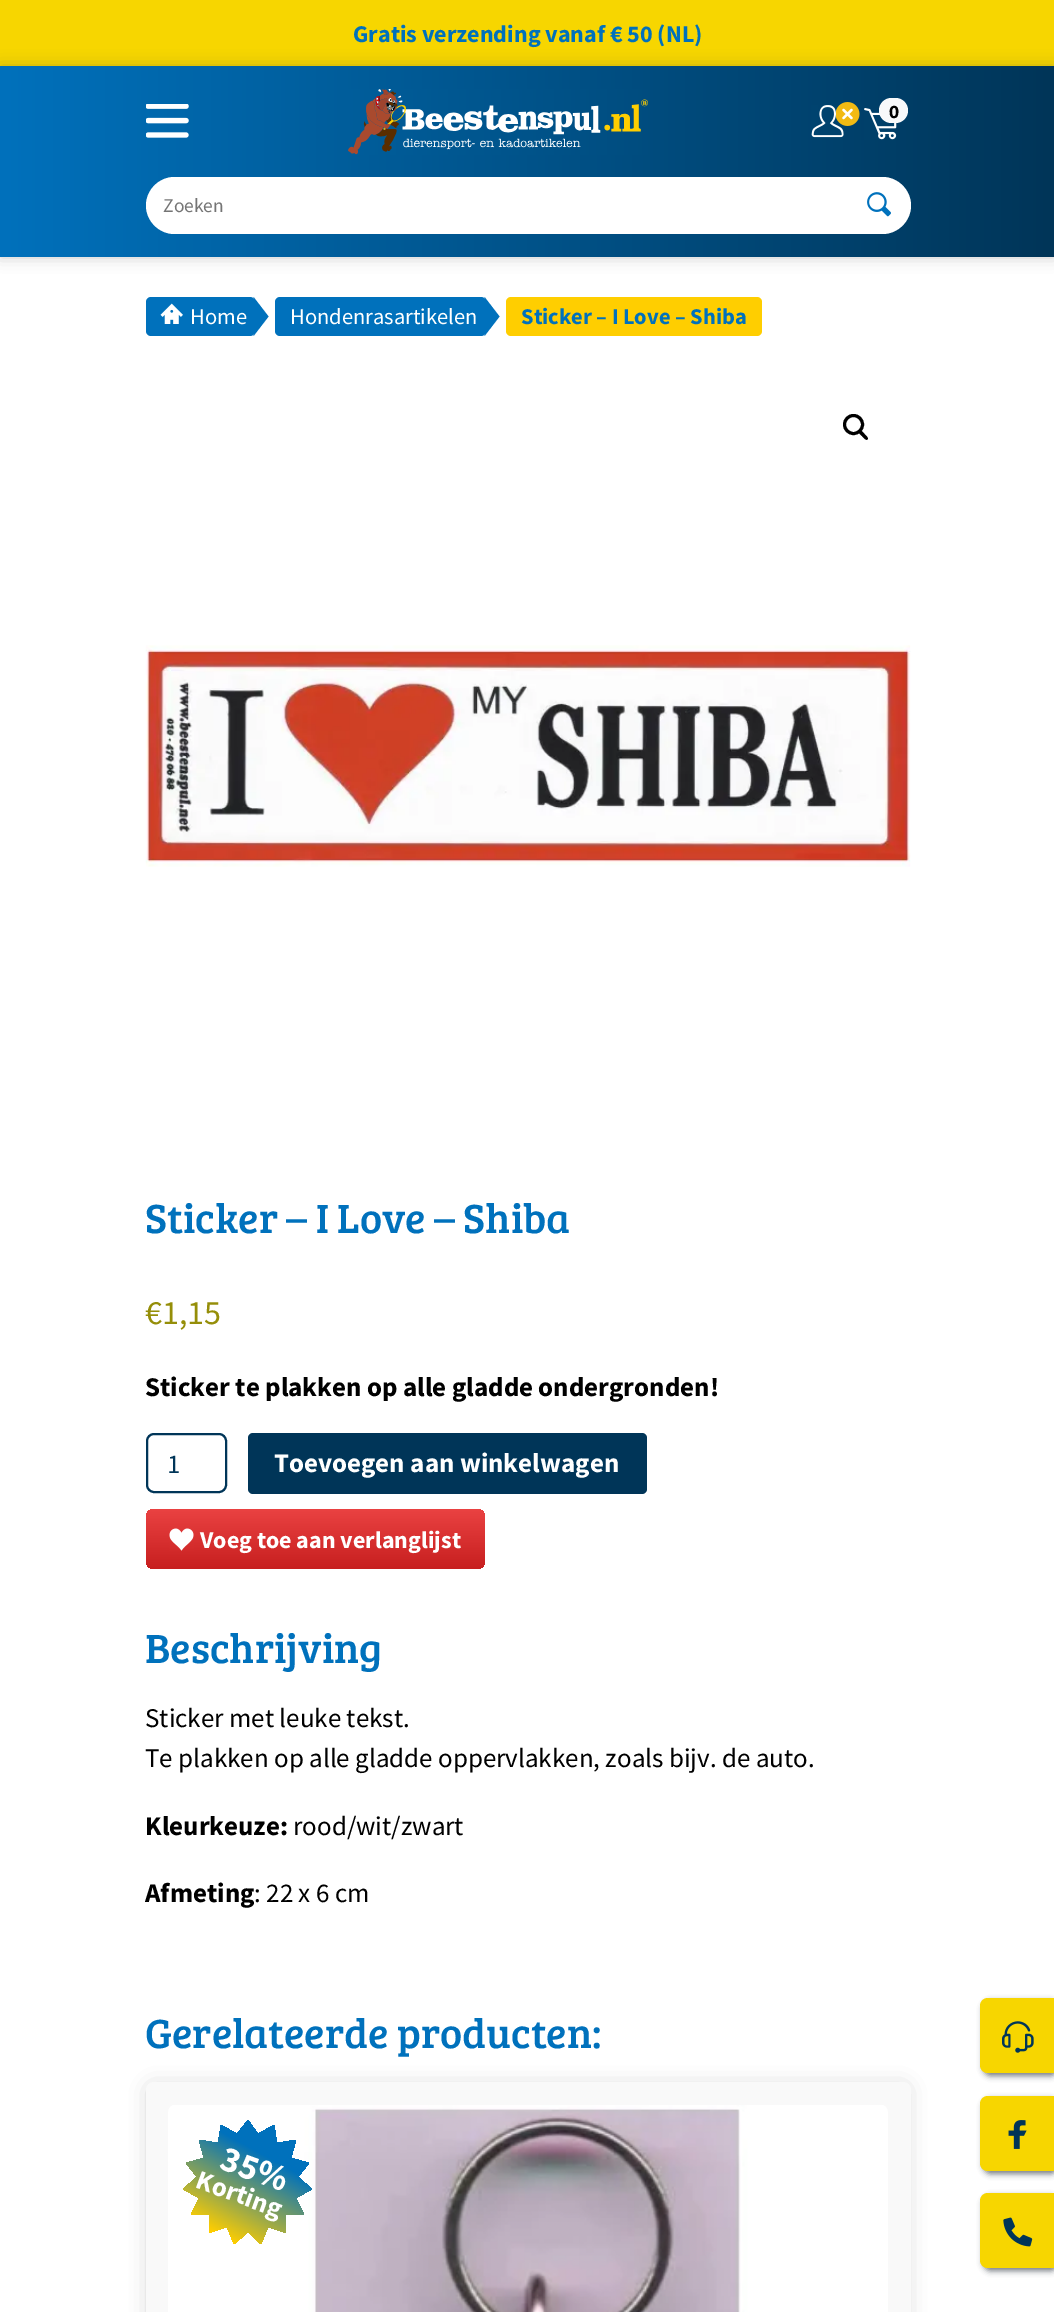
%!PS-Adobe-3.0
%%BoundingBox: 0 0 1054 2312
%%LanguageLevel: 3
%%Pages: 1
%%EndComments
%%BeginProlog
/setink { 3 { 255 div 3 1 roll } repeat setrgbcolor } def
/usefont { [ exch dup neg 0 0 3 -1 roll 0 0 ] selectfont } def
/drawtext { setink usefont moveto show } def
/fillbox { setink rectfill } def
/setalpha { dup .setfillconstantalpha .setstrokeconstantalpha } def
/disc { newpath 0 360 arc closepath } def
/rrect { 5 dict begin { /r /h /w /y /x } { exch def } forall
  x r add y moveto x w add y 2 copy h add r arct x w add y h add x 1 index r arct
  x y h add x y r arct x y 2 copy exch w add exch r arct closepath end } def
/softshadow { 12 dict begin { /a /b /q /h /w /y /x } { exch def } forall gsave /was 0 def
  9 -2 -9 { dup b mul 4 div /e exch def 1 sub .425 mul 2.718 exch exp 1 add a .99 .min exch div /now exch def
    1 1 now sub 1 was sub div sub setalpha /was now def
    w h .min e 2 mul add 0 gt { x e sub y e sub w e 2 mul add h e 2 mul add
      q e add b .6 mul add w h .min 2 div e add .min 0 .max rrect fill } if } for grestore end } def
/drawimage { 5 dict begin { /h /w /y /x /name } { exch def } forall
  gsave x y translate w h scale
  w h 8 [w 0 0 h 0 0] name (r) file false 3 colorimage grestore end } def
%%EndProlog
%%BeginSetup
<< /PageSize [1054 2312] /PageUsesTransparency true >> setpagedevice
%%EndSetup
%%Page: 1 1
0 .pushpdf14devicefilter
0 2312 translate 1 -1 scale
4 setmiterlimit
0 0 1054 2312 255 255 255 fillbox
0 0 1054 66 247 214 0 fillbox
(Gratis verzending vanaf € 50 \(NL\)) 353 42 /SourceSansPro-Bold 24 0 113 188 drawtext
50 50 50 setink
0 66 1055 191 0 7.5 0.25 softshadow
gsave 0 66 moveto 1054 66 lineto 1054 257 lineto 0 257 lineto closepath clip newpath
<< /ShadingType 2 /ColorSpace /DeviceRGB /Coords [0 161 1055 161] /Extend [true true] /Function << /FunctionType 2 /Domain [0 1] /C0 [0 0.443 0.737] /C1 [0 0.208 0.345] /N 1 >> >> shfill grestore
(assets/img1.rgb) 146 104 43 34 drawimage
(assets/img2.rgb) 348 89 300 66 drawimage
(assets/img3.rgb) 811 105 33 33 drawimage
(assets/img4.rgb) 836 102 24 24 drawimage
(assets/img5.rgb) 864 108 33 32 drawimage
248 249 250 setink
879 98 29 25 12.5 rrect fill
(0) 889 118 /BreeSerif-Bold 18 0 0 0 drawtext
255 255 255 setink
174.5 177 moveto 848 177 lineto 848 234 lineto 174.5 234 lineto 159 234 146 221 146 205.5 curveto 146 190 159 177 174.5 177 curveto closepath fill
(Zoeken) 163 212 /SourceSansPro-Regular 19.5 117 117 117 drawtext
255 255 255 setink
848 177 moveto 882.5 177 lineto 898 177 911 190 911 205.5 curveto 911 221 898 234 882.5 234 curveto 848 234 lineto closepath fill
(assets/img6.rgb) 867 192 24 25 drawimage
0 113 188 setink
146 297 109 39 5 rrect fill
(assets/img7.rgb) 160 303 23 21 drawimage
(Home) 190 324 /SourceSansPro-Regular 22.5 255 255 255 drawtext
254 299 1 35 255 255 255 fillbox
0 113 188 setink
253.5 336 moveto 253.5 297 lineto 268.5 316.5 lineto closepath fill
275 297 211 39 5 rrect fill
(Hondenrasartikelen) 290 324 /SourceSansPro-Regular 22.5 255 255 255 drawtext
485 299 1 35 255 255 255 fillbox
0 113 188 setink
484.5 336 moveto 484.5 297 lineto 499.5 316.5 lineto closepath fill
255 206 0 setink
506 297 256 39 5 rrect fill
(Sticker – I Love – Shiba) 521 324 /SourceSansPro-Bold 22.5 0 113 188 drawtext
0 0 0 setink
3 setlinewidth
853.5 424.5 9 disc stroke
859 431 moveto 860.5 429 863.5 433 864.5 434 curveto 865 435 869 437.5 867.5 439.5 curveto 866 441 863 437 862 436 curveto 861.5 435.5 857.5 432.5 859 431 curveto closepath fill
(assets/img8.rgb) 145 645 766 222 drawimage
(Sticker – I Love – Shiba) 145 1233 /BreeSerif-Regular 42 0 113 188 drawtext
(€1,15) 145 1324 /SourceSansPro-Regular 34 149 142 9 drawtext
(Sticker te plakken op alle gladde ondergronden!) 145 1396 /SourceSansPro-Bold 27 0 0 0 drawtext
0 53 88 setink
2 setlinewidth
147 1434 79 58 7 rrect stroke
(1) 167 1473 /SourceSansPro-Regular 27 0 53 88 drawtext
248 1433 399 61 5 rrect fill
(Toevoegen aan winkelwagen) 274 1472 /SourceSansPro-Bold 27 255 255 255 drawtext
gsave 146 1509 339 60 8 rrect clip newpath
<< /ShadingType 2 /ColorSpace /DeviceRGB /Coords [315 1509 315 1569] /Extend [true true] /Function << /FunctionType 2 /Domain [0 1] /C0 [0.918 0.259 0.259] /C1 [0.78 0.122 0.122] /N 1 >> >> shfill grestore
(assets/img9.rgb) 169 1528 25 23 drawimage
(Voeg toe aan verlanglijst) 200 1548 /SourceSansPro-Bold 24 255 255 255 drawtext
(Beschrijving) 145 1663 /BreeSerif-Regular 42 0 113 188 drawtext
(Sticker met leuke tekst.) 145 1727 /SourceSansPro-Regular 27 0 0 0 drawtext
(Te plakken op alle gladde oppervlakken, zoals bijv. de auto.) 145 1767 /SourceSansPro-Regular 27 0 0 0 drawtext
(Kleurkeuze:) 145 1835 /SourceSansPro-Bold 27 0 0 0 drawtext
(rood/wit/zwart) 293 1835 /SourceSansPro-Regular 27 0 0 0 drawtext
(Afmeting) 145 1902 /SourceSansPro-Bold 27 0 0 0 drawtext
(: 22 x 6 cm) 254 1902 /SourceSansPro-Regular 27 0 0 0 drawtext
(Gerelateerde producten:) 145 2048 /BreeSerif-Regular 42 0 113 188 drawtext
0 0 0 setink
153 2090 750 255 0 11 0.3 softshadow
249 249 249 setink
146 2082 765 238 8 rrect fill
(assets/img10.rgb) 168 2105 720 207 drawimage
gsave 248 2120 moveto 258 2134 lineto 274 2125 lineto 277 2143 lineto 296 2140 lineto 291 2158 lineto 309 2163 lineto 298 2177 lineto 312 2189 lineto 296 2198 lineto 304 2214 lineto 285 2215 lineto 286 2233 lineto 268 2227 lineto 261 2244 lineto 248 2232 lineto 234 2244 lineto 227 2227 lineto 209 2233 lineto 210 2215 lineto 191 2214 lineto 199 2198 lineto 183 2189 lineto 197 2177 lineto 186 2163 lineto 204 2158 lineto 199 2140 lineto 218 2143 lineto 221 2125 lineto 237 2134 lineto closepath clip newpath
<< /ShadingType 2 /ColorSpace /DeviceRGB /Coords [268 2157 224 2238] /Extend [true true] /Function << /FunctionType 2 /Domain [0 1] /C0 [0 0.443 0.737] /C1 [1 0.808 0] /N 1 >> >> shfill grestore
/SourceSansPro-Bold 36 usefont
255 255 255 setink
gsave 218 2168 translate 20 rotate 0 0 moveto (35%) show grestore
/SourceSansPro-Bold 27 usefont
gsave 194 2187 translate 20 rotate 0 0 moveto (Korting) show grestore
45 53 64 setink
983 2001 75 75 8 3 0.65 softshadow
247 214 0 setink
988 1998 moveto 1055 1998 lineto 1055 2073 lineto 988 2073 lineto 983.5 2073 980 2069.5 980 2065 curveto 980 2006 lineto 980 2001.5 983.5 1998 988 1998 curveto closepath fill
(assets/img11.rgb) 1002 2021 32 32 drawimage
45 53 64 setink
983 2099 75 75 8 3 0.65 softshadow
247 214 0 setink
988 2096 moveto 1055 2096 lineto 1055 2171 lineto 988 2171 lineto 983.5 2171 980 2167.5 980 2163 curveto 980 2104 lineto 980 2099.5 983.5 2096 988 2096 curveto closepath fill
(assets/img12.rgb) 1008 2120 19 29 drawimage
45 53 64 setink
983 2196 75 75 8 3 0.65 softshadow
247 214 0 setink
988 2193 moveto 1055 2193 lineto 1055 2268 lineto 988 2268 lineto 983.5 2268 980 2264.5 980 2260 curveto 980 2201 lineto 980 2196.5 983.5 2193 988 2193 curveto closepath fill
(assets/img13.rgb) 1003 2217 30 30 drawimage
.poppdf14devicefilter showpage
%%EOF
